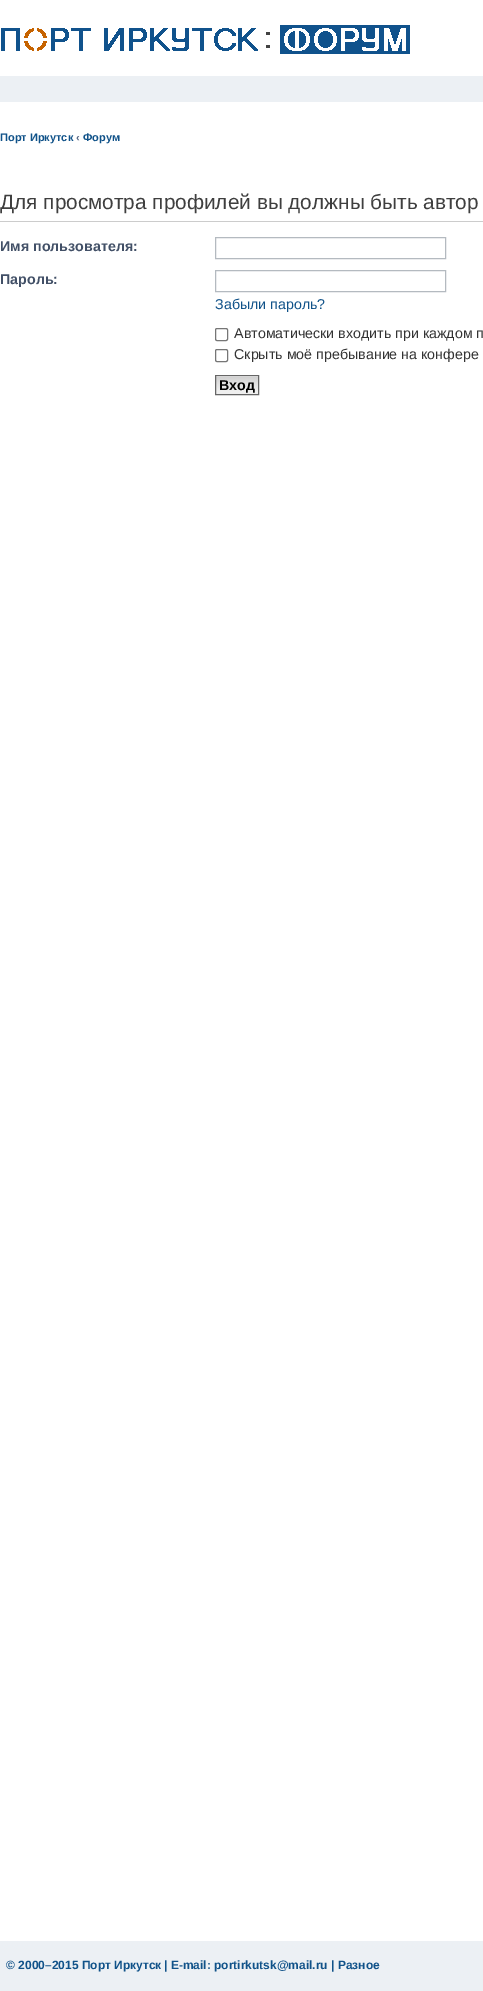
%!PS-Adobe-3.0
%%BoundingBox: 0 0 483 1991
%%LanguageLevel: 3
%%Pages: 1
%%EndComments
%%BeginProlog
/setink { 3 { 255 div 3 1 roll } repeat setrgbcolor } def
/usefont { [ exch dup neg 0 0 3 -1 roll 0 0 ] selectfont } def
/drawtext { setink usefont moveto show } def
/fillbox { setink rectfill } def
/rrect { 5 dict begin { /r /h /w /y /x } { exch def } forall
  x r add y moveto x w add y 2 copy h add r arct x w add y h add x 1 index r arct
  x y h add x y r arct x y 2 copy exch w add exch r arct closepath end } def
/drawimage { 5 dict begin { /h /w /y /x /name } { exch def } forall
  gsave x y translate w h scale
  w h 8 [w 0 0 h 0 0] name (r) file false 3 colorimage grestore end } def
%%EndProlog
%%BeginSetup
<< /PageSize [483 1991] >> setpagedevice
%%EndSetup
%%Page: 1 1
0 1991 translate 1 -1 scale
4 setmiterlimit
0 0 483 1991 255 255 255 fillbox
(assets/img1.rgb) 1 28 257 23 drawimage
(assets/img2.rgb) 266 32 4 16 drawimage
(assets/img3.rgb) 280 25 130 29 drawimage
0 76 483 26 236 240 244 fillbox
(Порт Иркутск) 0 141 /LiberationSans-Bold 11 16 82 137 drawtext
(‹) 76 141 /LiberationSans-Bold 11 83 100 130 drawtext
(Форум) 83 141 /LiberationSans-Bold 11 16 82 137 drawtext
0 221 483 1 204 204 204 fillbox
(Для просмотра профилей вы должны быть автор) 0 209 /LiberationSans-Regular 20.8 63 63 63 drawtext
(Имя пользователя:) 0 251 /LiberationSans-Bold 14.25 66 80 103 drawtext
180 186 192 setink
215.5 237.5 230 21 rectstroke
(Пароль:) 0 284 /LiberationSans-Bold 14.25 66 80 103 drawtext
180 186 192 setink
215.5 270.5 230 21 rectstroke
(Забыли пароль?) 215 309 /LiberationSans-Regular 14.25 16 82 137 drawtext
118 118 118 setink
215.5 328.5 12 12 1.5 rrect stroke
(Автоматически входить при каждом п) 234 338 /LiberationSans-Regular 14.25 51 51 51 drawtext
118 118 118 setink
215.5 349.5 12 12 1.5 rrect stroke
(Скрыть моё пребывание на конфере) 234 359 /LiberationSans-Regular 14.25 51 51 51 drawtext
(assets/img4.rgb) 216 376 42 18 drawimage
102 102 102 setink
215.5 375.5 43 19 rectstroke
(Вход) 219 390 /LiberationSans-Bold 14.25 0 0 0 drawtext
0 1941 483 50 236 240 244 fillbox
(© 2000–2015 Порт Иркутск) 6 1969 /LiberationSans-Bold 12 16 82 137 drawtext
(| E-mail: portirkutsk@mail.ru) 164 1969 /LiberationSans-Bold 12 16 82 137 drawtext
(| Разное) 331 1969 /LiberationSans-Bold 12 16 82 137 drawtext
showpage
%%EOF
